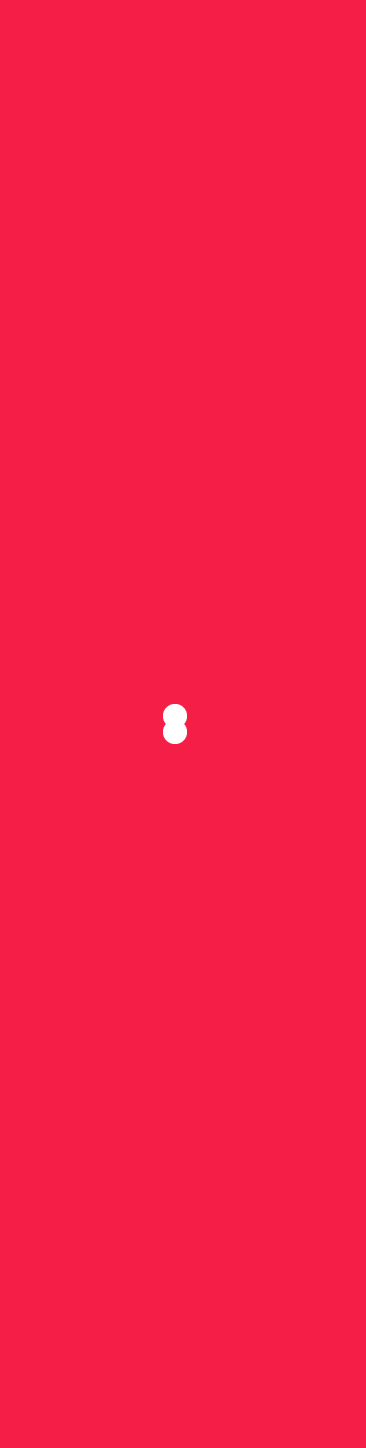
%!PS-Adobe-3.0
%%BoundingBox: 0 0 366 1448
%%LanguageLevel: 3
%%Pages: 1
%%EndComments
%%BeginProlog
/setink { 3 { 255 div 3 1 roll } repeat setrgbcolor } def
/fillbox { setink rectfill } def
/disc { newpath 0 360 arc closepath } def
%%EndProlog
%%BeginSetup
<< /PageSize [366 1448] >> setpagedevice
%%EndSetup
%%Page: 1 1
0 1448 translate 1 -1 scale
4 setmiterlimit
0 0 366 1448 245 30 70 fillbox
255 255 255 setink
175 716 12 disc fill
175 732 12 disc fill
showpage
%%EOF
